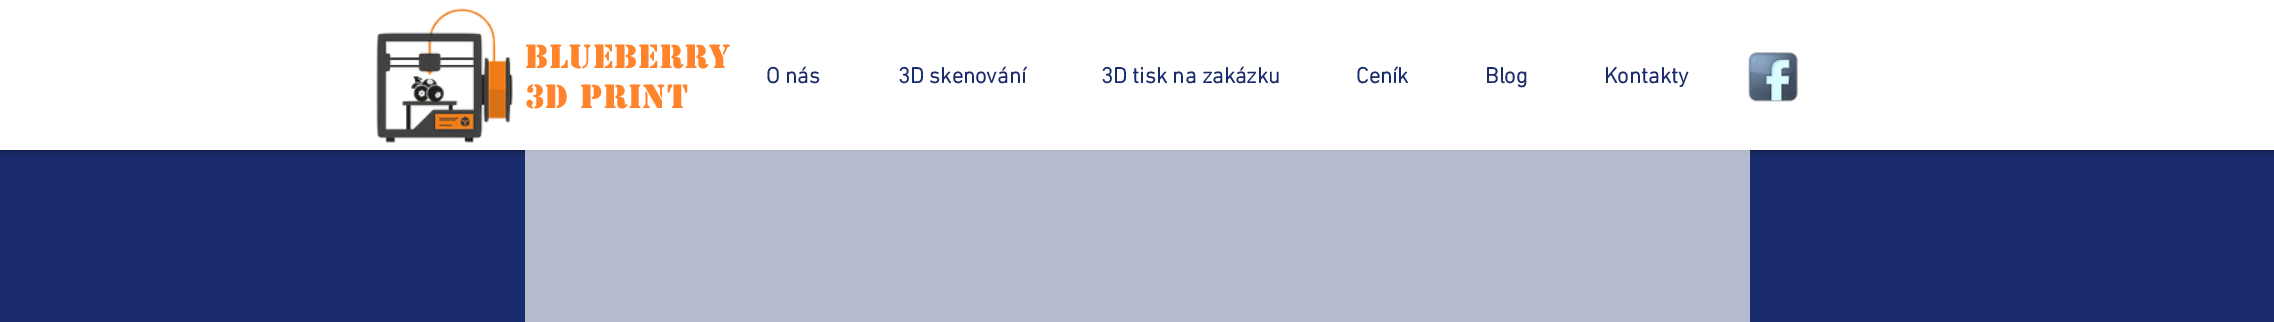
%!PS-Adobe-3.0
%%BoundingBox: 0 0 2274 322
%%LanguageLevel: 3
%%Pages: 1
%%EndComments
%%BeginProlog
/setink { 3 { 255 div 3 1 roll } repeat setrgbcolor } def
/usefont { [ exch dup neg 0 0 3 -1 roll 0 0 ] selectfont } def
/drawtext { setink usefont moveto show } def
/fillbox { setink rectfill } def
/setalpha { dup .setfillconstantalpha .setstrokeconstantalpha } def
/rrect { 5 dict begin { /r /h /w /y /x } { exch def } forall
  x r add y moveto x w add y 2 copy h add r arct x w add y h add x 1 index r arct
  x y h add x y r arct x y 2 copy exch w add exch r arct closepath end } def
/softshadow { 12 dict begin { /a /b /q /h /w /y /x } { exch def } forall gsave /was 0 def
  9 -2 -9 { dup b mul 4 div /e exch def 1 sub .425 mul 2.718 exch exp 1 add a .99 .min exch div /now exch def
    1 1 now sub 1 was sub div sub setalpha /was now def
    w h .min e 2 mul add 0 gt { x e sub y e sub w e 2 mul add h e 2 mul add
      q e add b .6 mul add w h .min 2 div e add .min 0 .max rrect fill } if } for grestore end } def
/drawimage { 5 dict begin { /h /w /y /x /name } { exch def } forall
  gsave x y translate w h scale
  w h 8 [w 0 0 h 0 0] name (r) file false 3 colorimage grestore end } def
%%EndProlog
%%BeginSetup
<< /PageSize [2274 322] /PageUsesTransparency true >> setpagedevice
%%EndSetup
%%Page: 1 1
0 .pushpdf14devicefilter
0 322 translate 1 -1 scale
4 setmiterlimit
0 0 2274 322 26 43 109 fillbox
0 0 0 setink
0 0 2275 150 0 3 0.7 softshadow
0 0 2274 150 255 255 255 fillbox
(assets/img1.rgb) 376 8 137 135 drawimage
/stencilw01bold-Bold 31.25 usefont
255 132 43 setink
525 68 moveto 0.6 0 (blueberry) ashow
525 108 moveto 0.6 0 (3D print) ashow
(O nás) 766 83 /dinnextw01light-Bold 22.5 26 43 109 drawtext
(3D skenování) 898 83 /dinnextw01light-Bold 22.5 26 43 109 drawtext
(3D tisk na zakázku) 1101 83 /dinnextw01light-Bold 22.5 26 43 109 drawtext
(Ceník) 1356 83 /dinnextw01light-Bold 22.5 26 43 109 drawtext
(Blog) 1485 83 /dinnextw01light-Bold 22.5 26 43 109 drawtext
(Kontakty) 1604 83 /dinnextw01light-Bold 22.5 26 43 109 drawtext
(assets/img2.rgb) 1748 52 50 50 drawimage
0.68 setalpha
525 150 1225 172 255 255 255 fillbox
.poppdf14devicefilter showpage
%%EOF
